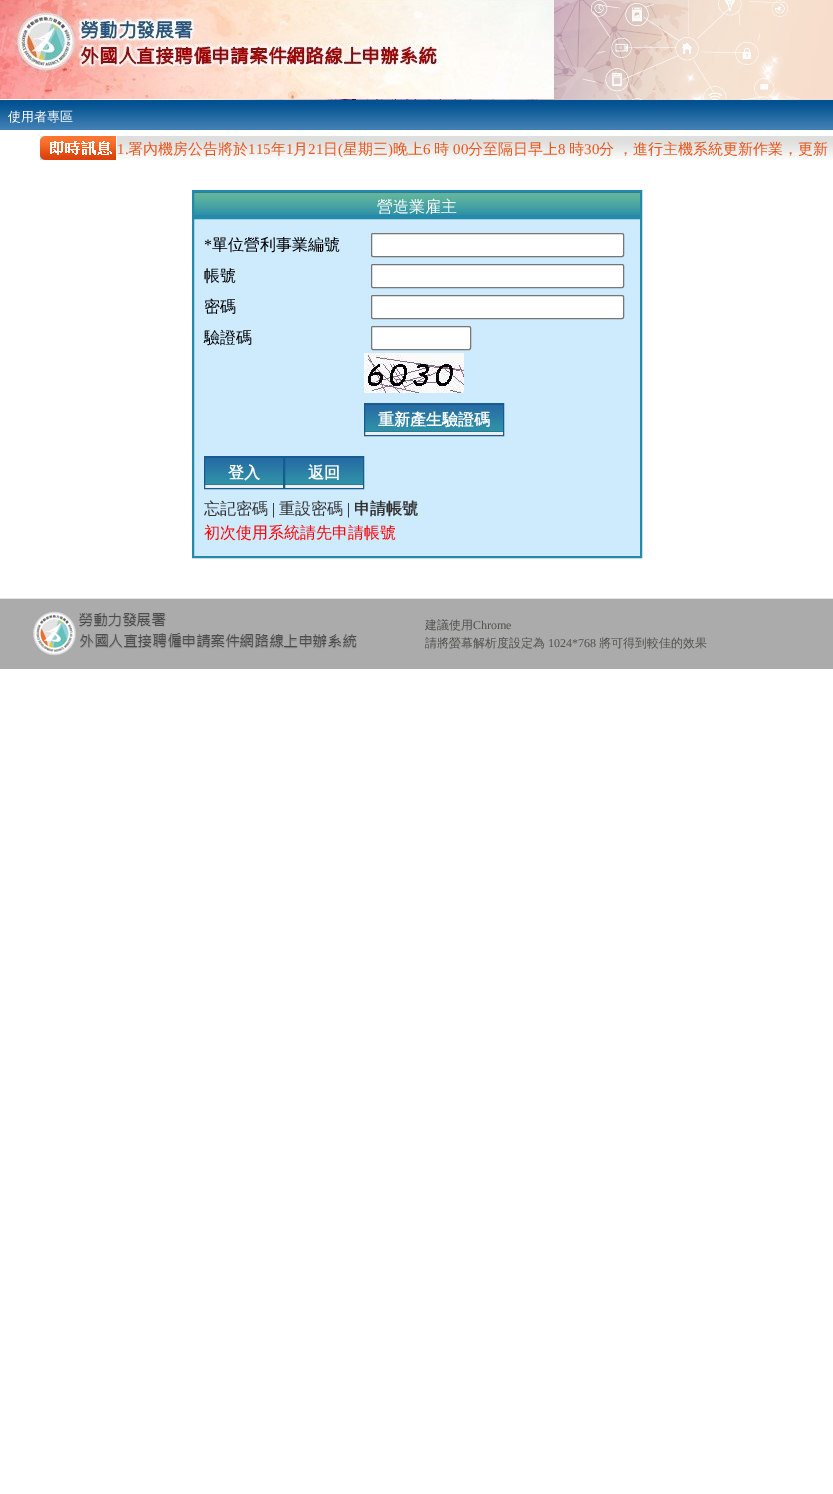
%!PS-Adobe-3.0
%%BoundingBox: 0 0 833 1494
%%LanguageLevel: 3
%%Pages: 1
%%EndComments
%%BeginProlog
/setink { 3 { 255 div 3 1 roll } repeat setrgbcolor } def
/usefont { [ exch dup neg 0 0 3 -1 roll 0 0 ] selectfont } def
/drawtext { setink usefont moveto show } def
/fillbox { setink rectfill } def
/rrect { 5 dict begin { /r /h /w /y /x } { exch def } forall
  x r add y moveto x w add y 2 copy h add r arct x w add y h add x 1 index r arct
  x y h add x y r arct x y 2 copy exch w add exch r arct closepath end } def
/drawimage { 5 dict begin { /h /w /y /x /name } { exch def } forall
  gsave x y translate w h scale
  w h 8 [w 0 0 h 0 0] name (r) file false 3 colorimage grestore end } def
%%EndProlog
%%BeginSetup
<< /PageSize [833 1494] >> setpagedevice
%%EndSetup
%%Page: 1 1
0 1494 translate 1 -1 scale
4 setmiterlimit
0 0 833 1494 255 255 255 fillbox
0 99 182 1 250 249 242 fillbox
(assets/img1.rgb) 182 0 651 100 drawimage
(assets/img2.rgb) 0 0 554 99 drawimage
(assets/img3.rgb) 0 100 833 30 drawimage
(使用者專區) 8 121 /WenQuanYiZenHei-Medium 13 255 255 255 drawtext
(assets/img4.rgb) 40 136 76 24 drawimage
(assets/img5.rgb) 117 136 716 23 drawimage
(1.) 117 154 /LiberationSerif-Regular 15 234 86 27 drawtext
(署內機房公告將於) 128 154 /WenQuanYiZenHei-Medium 15 234 86 27 drawtext
(115) 248 154 /LiberationSerif-Regular 15 234 86 27 drawtext
(年) 271 154 /WenQuanYiZenHei-Medium 15 234 86 27 drawtext
(1) 286 154 /LiberationSerif-Regular 15 234 86 27 drawtext
(月) 293 154 /WenQuanYiZenHei-Medium 15 234 86 27 drawtext
(21) 308 154 /LiberationSerif-Regular 15 234 86 27 drawtext
(日) 323 154 /WenQuanYiZenHei-Medium 15 234 86 27 drawtext
(\() 338 154 /LiberationSerif-Regular 15 234 86 27 drawtext
(星期三) 343 154 /WenQuanYiZenHei-Medium 15 234 86 27 drawtext
(\)) 388 154 /LiberationSerif-Regular 15 234 86 27 drawtext
(晚上) 393 154 /WenQuanYiZenHei-Medium 15 234 86 27 drawtext
(6) 423 154 /LiberationSerif-Regular 15 234 86 27 drawtext
(時) 434 154 /WenQuanYiZenHei-Medium 15 234 86 27 drawtext
(00) 453 154 /LiberationSerif-Regular 15 234 86 27 drawtext
(分至隔日早上) 468 154 /WenQuanYiZenHei-Medium 15 234 86 27 drawtext
(8) 558 154 /LiberationSerif-Regular 15 234 86 27 drawtext
(時) 569 154 /WenQuanYiZenHei-Medium 15 234 86 27 drawtext
(30) 584 154 /LiberationSerif-Regular 15 234 86 27 drawtext
(分 ，進行主機系統更新作業，更新) 599 154 /WenQuanYiZenHei-Medium 15 234 86 27 drawtext
(assets/img6.rgb) 194 192 446 23 drawimage
36 138 170 setink
2 setlinewidth
193 191 448 25 rectstroke
(營造業雇主) 377 212 /WenQuanYiZenHei-Medium 16 255 255 255 drawtext
206 235 254 setink
193 218 moveto 641 218 lineto 641 557 lineto 193 557 lineto closepath gsave fill grestore
36 138 170 setink
stroke
(*) 204 250 /LiberationSerif-Regular 16 0 0 0 drawtext
(單位營利事業編號) 212 250 /WenQuanYiZenHei-Medium 16 0 0 0 drawtext
255 255 255 setink
371.5 233.5 252 23 1.5 rrect gsave fill grestore
118 118 118 setink
1 setlinewidth
stroke
(帳號) 204 281 /WenQuanYiZenHei-Medium 16 0 0 0 drawtext
255 255 255 setink
371.5 264.5 252 23 1.5 rrect gsave fill grestore
118 118 118 setink
stroke
(密碼) 204 312 /WenQuanYiZenHei-Medium 16 0 0 0 drawtext
255 255 255 setink
371.5 295.5 252 23 1.5 rrect gsave fill grestore
118 118 118 setink
stroke
(驗證碼) 204 343 /WenQuanYiZenHei-Medium 16 0 0 0 drawtext
255 255 255 setink
371.5 326.5 99 23 1.5 rrect gsave fill grestore
118 118 118 setink
stroke
(assets/img7.rgb) 364 353 100 40 drawimage
365 432 138 3 239 239 239 fillbox
(assets/img8.rgb) 365 404 138 28 drawimage
23 91 144 setink
364.5 403.5 139 32 rectstroke
(重新產生驗證碼) 378 425 /WenQuanYiZenHei-Bold 16 255 255 255 drawtext
205 485 78 3 239 239 239 fillbox
(assets/img9.rgb) 205 457 78 28 drawimage
23 91 144 setink
204.5 456.5 79 32 rectstroke
(登入) 228 478 /WenQuanYiZenHei-Bold 16 255 255 255 drawtext
285 485 78 3 239 239 239 fillbox
(assets/img9.rgb) 285 457 78 28 drawimage
23 91 144 setink
284.5 456.5 79 32 rectstroke
(返回) 308 478 /WenQuanYiZenHei-Bold 16 255 255 255 drawtext
(忘記密碼) 204 514 /WenQuanYiZenHei-Medium 16 51 51 51 drawtext
(|) 272 514 /LiberationSerif-Regular 16 0 0 0 drawtext
(重設密碼) 279 514 /WenQuanYiZenHei-Medium 16 51 51 51 drawtext
(|) 347 514 /LiberationSerif-Regular 16 0 0 0 drawtext
(申請帳號) 354 514 /WenQuanYiZenHei-Bold 16 51 51 51 drawtext
(初次使用系統請先申請帳號) 204 538 /WenQuanYiZenHei-Medium 16 255 0 0 drawtext
0 599 833 70 171 171 171 fillbox
(assets/img10.rgb) 33 611 324 45 drawimage
0 598 833 1 228 228 228 fillbox
(建議使用) 425 629 /WenQuanYiZenHei-Medium 12 81 81 79 drawtext
(Chrome) 473 629 /LiberationSerif-Regular 12 81 81 79 drawtext
(請將螢幕解析度設定為) 425 647 /WenQuanYiZenHei-Medium 12 81 81 79 drawtext
(1024*768) 548 647 /LiberationSerif-Regular 12 81 81 79 drawtext
(將可得到較佳的效果) 599 647 /WenQuanYiZenHei-Medium 12 81 81 79 drawtext
showpage
%%EOF
